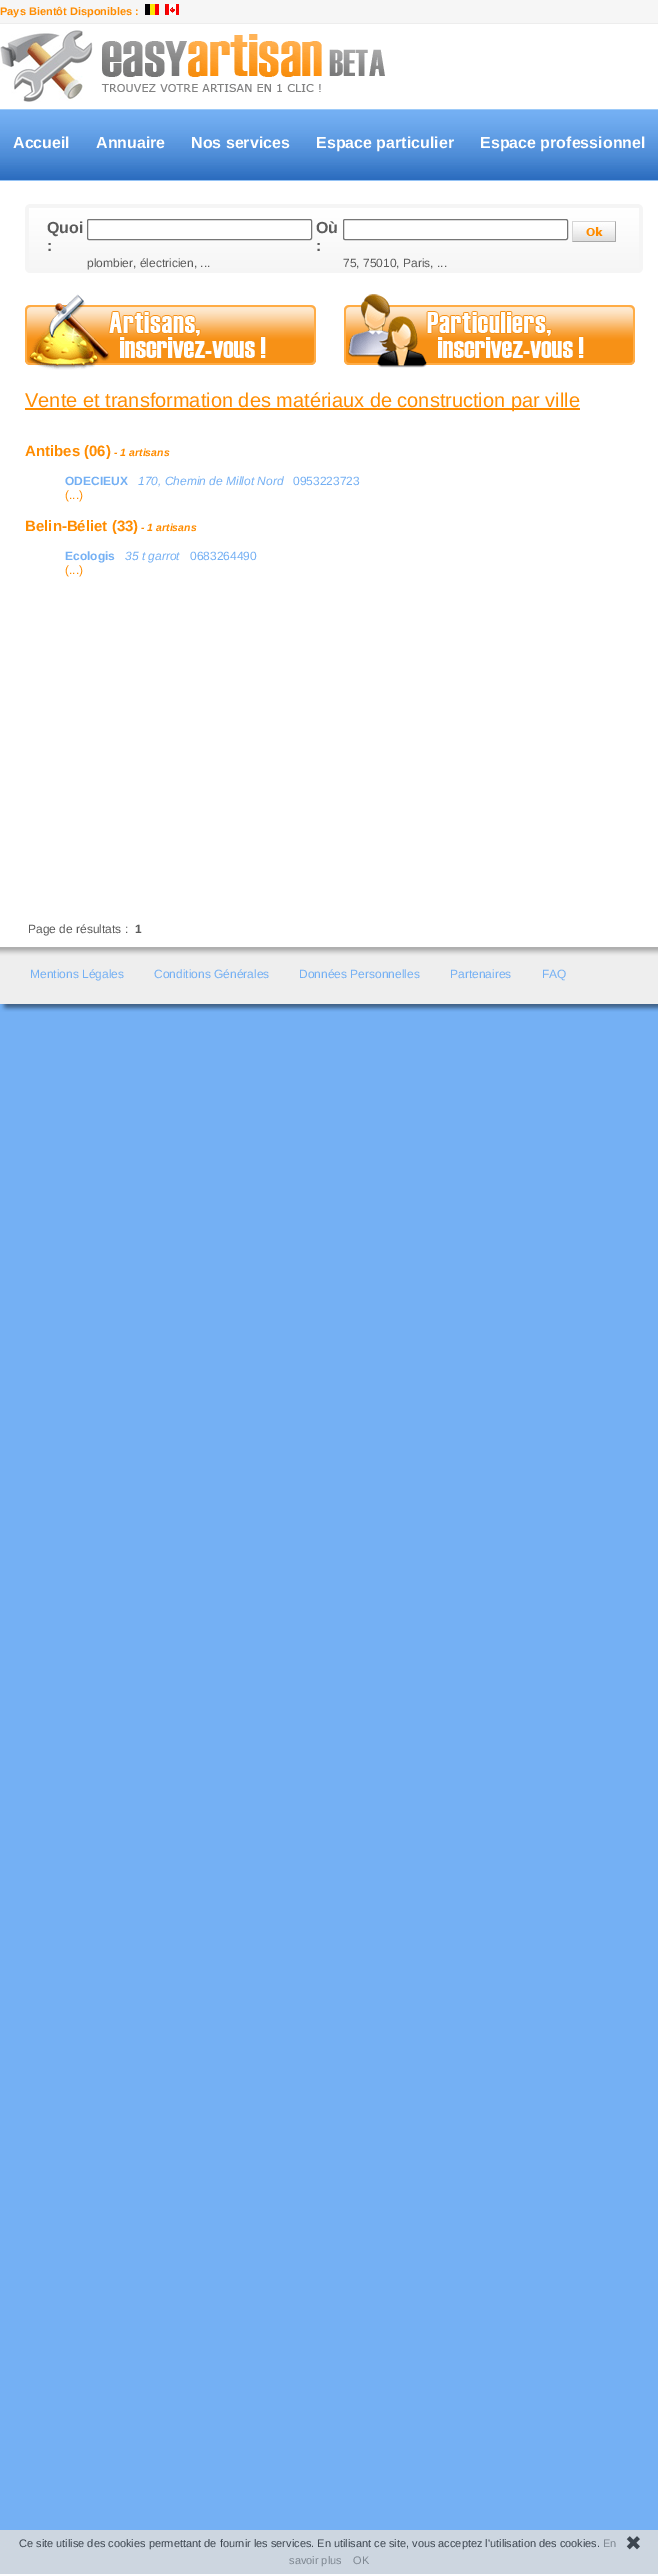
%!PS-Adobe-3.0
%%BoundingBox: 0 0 658 2574
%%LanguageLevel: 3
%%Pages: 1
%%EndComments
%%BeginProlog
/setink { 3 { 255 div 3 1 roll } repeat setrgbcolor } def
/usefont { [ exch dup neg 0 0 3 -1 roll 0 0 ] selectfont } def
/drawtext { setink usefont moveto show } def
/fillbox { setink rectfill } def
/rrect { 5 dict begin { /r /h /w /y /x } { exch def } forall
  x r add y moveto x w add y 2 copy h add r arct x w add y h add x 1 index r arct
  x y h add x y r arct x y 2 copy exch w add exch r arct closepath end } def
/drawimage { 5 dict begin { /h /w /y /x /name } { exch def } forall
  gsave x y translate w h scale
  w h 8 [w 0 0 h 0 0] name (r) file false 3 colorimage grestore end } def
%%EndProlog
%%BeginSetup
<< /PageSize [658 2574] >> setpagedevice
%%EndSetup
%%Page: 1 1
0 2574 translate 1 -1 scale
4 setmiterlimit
0 0 658 2574 116 176 244 fillbox
(assets/img1.rgb) 0 0 658 181 drawimage
0 23 658 1 237 237 237 fillbox
(Pays Bientôt Disponibles :) 0 15 /LiberationSans-Bold 11 255 140 0 drawtext
(assets/img2.rgb) 145 4 14 11 drawimage
(assets/img3.rgb) 165 4 14 11 drawimage
(assets/img4.rgb) 0 30 385 72 drawimage
(Accueil) 13 148 /LiberationSans-Bold 16 255 255 255 drawtext
(Annuaire) 96 148 /LiberationSans-Bold 16 255 255 255 drawtext
(Nos services) 191 148 /LiberationSans-Bold 16 255 255 255 drawtext
(Espace particulier) 316 148 /LiberationSans-Bold 16 255 255 255 drawtext
(Espace professionnel) 480 148 /LiberationSans-Bold 16 255 255 255 drawtext
0 181 658 766 255 255 255 fillbox
(assets/img5.rgb) 29 204 610 69 drawimage
(assets/img6.rgb) 25 204 4 69 drawimage
(Quoi) 47 233 /LiberationSans-Bold 16 91 91 91 drawtext
(:) 47 251 /LiberationSans-Bold 16 91 91 91 drawtext
255 255 255 setink
87.5 219.5 224 20 1.5 rrect gsave fill grestore
118 118 118 setink
stroke
(Où) 316 233 /LiberationSans-Bold 16 91 91 91 drawtext
(:) 316 251 /LiberationSans-Bold 16 91 91 91 drawtext
255 255 255 setink
343.5 219.5 224 20 1.5 rrect gsave fill grestore
118 118 118 setink
stroke
(assets/img7.rgb) 572 221 44 21 drawimage
(plombier, électricien, ...) 87 267 /LiberationSans-Regular 12 91 91 91 drawtext
(75, 75010, Paris, ...) 343 267 /LiberationSans-Regular 12 91 91 91 drawtext
(assets/img8.rgb) 639 204 4 69 drawimage
(assets/img9.rgb) 25 294 291 76 drawimage
(assets/img10.rgb) 344 294 291 74 drawimage
25 408 555 2 255 140 0 fillbox
(Vente et transformation des matériaux de construction par ville) 25 407 /LiberationSans-Regular 20 255 140 0 drawtext
(Antibes \(06\)) 25 456 /LiberationSans-Bold 15 255 140 0 drawtext
(- 1 artisans) 114 456 /LiberationSans-BoldItalic 10.5 255 140 0 drawtext
(ODECIEUX) 65 485 /LiberationSans-Bold 12 116 176 244 drawtext
(170, Chemin de Millot Nord) 138 485 /LiberationSans-Italic 12 116 176 244 drawtext
(0953223723) 293 485 /LiberationSans-Regular 12 116 176 244 drawtext
(\(...\)) 65 499 /LiberationSans-Regular 12 255 140 0 drawtext
(Belin-Béliet \(33\)) 25 531 /LiberationSans-Bold 15 255 140 0 drawtext
(- 1 artisans) 141 531 /LiberationSans-BoldItalic 10.5 255 140 0 drawtext
(Ecologis) 65 560 /LiberationSans-Bold 12 116 176 244 drawtext
(35 t garrot) 125 560 /LiberationSans-Italic 12 116 176 244 drawtext
(0683264490) 190 560 /LiberationSans-Regular 12 116 176 244 drawtext
(\(...\)) 65 574 /LiberationSans-Regular 12 255 140 0 drawtext
(Page de résultats :) 28 933 /LiberationSans-Regular 12 91 91 91 drawtext
(1) 135 933 /LiberationSans-Bold 12 91 91 91 drawtext
(assets/img11.rgb) 0 947 658 57 drawimage
(Mentions Légales) 30 978 /LiberationSans-Regular 12 116 176 244 drawtext
(Conditions Générales) 154 978 /LiberationSans-Regular 12 116 176 244 drawtext
(Données Personnelles) 299 978 /LiberationSans-Regular 12 116 176 244 drawtext
(Partenaires) 450 978 /LiberationSans-Regular 12 116 176 244 drawtext
(FAQ) 542 978 /LiberationSans-Regular 12 116 176 244 drawtext
(assets/img12.rgb) 0 1004 658 8 drawimage
0 2530 658 44 205 214 224 fillbox
(Ce site utilise des cookies permettant de fournir les services. En utilisant ce site, vous acceptez l'utilisation des cookies.) 19 2547 /LiberationSans-Regular 11 61 70 80 drawtext
(En) 603 2547 /LiberationSans-Regular 11 126 135 145 drawtext
(✖) 625 2550 /DejaVuSans-Regular 20 61 70 80 drawtext
(savoir plus) 289 2564 /LiberationSans-Regular 11 126 135 145 drawtext
(OK) 353 2564 /LiberationSans-Regular 11 126 135 145 drawtext
showpage
%%EOF
